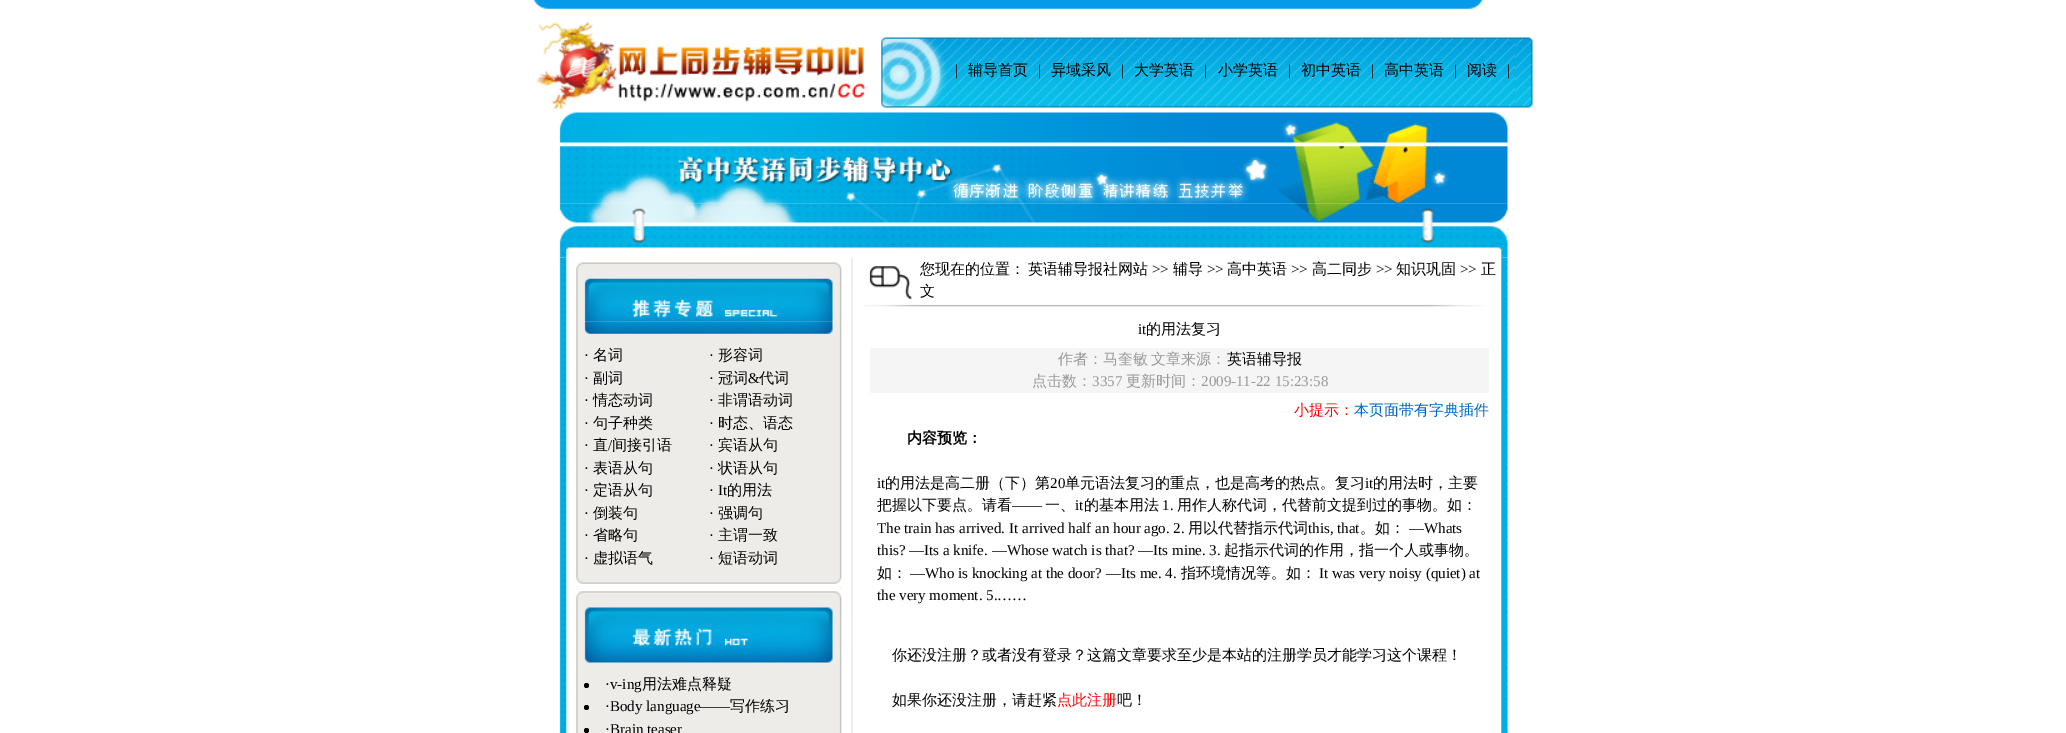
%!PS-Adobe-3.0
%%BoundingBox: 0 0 2066 733
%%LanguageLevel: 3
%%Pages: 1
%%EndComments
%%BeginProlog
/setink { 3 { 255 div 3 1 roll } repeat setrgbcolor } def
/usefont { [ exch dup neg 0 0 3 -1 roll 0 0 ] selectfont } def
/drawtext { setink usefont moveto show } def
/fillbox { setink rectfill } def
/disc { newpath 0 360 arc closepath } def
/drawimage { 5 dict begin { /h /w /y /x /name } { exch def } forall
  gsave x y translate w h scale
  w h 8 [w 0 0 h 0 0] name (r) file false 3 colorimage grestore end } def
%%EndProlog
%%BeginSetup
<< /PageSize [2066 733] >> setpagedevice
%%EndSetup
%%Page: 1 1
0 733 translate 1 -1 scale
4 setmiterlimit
0 0 2066 733 255 255 255 fillbox
(assets/img1.rgb) 533 0 950 9 drawimage
(assets/img2.rgb) 536 22 330 87 drawimage
(assets/img3.rgb) 881 37 69 71 drawimage
(assets/img4.rgb) 950 37 565 71 drawimage
(|) 955 75 /LiberationSerif-Regular 15 0 0 0 drawtext
(辅导首页) 968 75 /WenQuanYiZenHei-Medium 15 0 0 0 drawtext
(|) 1038 75 /LiberationSerif-Regular 15 0 0 0 drawtext
(异域采风) 1051 75 /WenQuanYiZenHei-Medium 15 0 0 0 drawtext
(|) 1121 75 /LiberationSerif-Regular 15 0 0 0 drawtext
(大学英语) 1134 75 /WenQuanYiZenHei-Medium 15 0 0 0 drawtext
(|) 1204 75 /LiberationSerif-Regular 15 0 0 0 drawtext
(小学英语) 1218 75 /WenQuanYiZenHei-Medium 15 0 0 0 drawtext
(|) 1288 75 /LiberationSerif-Regular 15 0 0 0 drawtext
(初中英语) 1301 75 /WenQuanYiZenHei-Medium 15 0 0 0 drawtext
(|) 1371 75 /LiberationSerif-Regular 15 0 0 0 drawtext
(高中英语) 1384 75 /WenQuanYiZenHei-Medium 15 0 0 0 drawtext
(|) 1454 75 /LiberationSerif-Regular 15 0 0 0 drawtext
(阅读) 1467 75 /WenQuanYiZenHei-Medium 15 0 0 0 drawtext
(|) 1507 75 /LiberationSerif-Regular 15 0 0 0 drawtext
(assets/img5.rgb) 1515 37 18 71 drawimage
(assets/img6.rgb) 559 112 949 38 drawimage
(assets/img7.rgb) 559 150 949 54 drawimage
(assets/img9.rgb) 559 257 950 476 drawimage
(assets/img8.rgb) 559 203 950 55 drawimage
(assets/img10.rgb) 576 269 266 318 drawimage
(assets/img11.rgb) 576 260 266 9 drawimage
(assets/img12.rgb) 584 278 249 44 drawimage
(assets/img13.rgb) 584 321 249 13 drawimage
(·) 584 360 /LiberationSerif-Regular 15 0 0 0 drawtext
(名词) 593 360 /WenQuanYiZenHei-Medium 15 0 0 0 drawtext
(·) 709 360 /LiberationSerif-Regular 15 0 0 0 drawtext
(形容词) 718 360 /WenQuanYiZenHei-Medium 15 0 0 0 drawtext
(·) 584 383 /LiberationSerif-Regular 15 0 0 0 drawtext
(副词) 593 383 /WenQuanYiZenHei-Medium 15 0 0 0 drawtext
(·) 709 383 /LiberationSerif-Regular 15 0 0 0 drawtext
(冠词) 718 383 /WenQuanYiZenHei-Medium 15 0 0 0 drawtext
(&) 748 383 /LiberationSerif-Regular 15 0 0 0 drawtext
(代词) 759 383 /WenQuanYiZenHei-Medium 15 0 0 0 drawtext
(·) 584 405 /LiberationSerif-Regular 15 0 0 0 drawtext
(情态动词) 593 405 /WenQuanYiZenHei-Medium 15 0 0 0 drawtext
(·) 709 405 /LiberationSerif-Regular 15 0 0 0 drawtext
(非谓语动词) 718 405 /WenQuanYiZenHei-Medium 15 0 0 0 drawtext
(·) 584 428 /LiberationSerif-Regular 15 0 0 0 drawtext
(句子种类) 593 428 /WenQuanYiZenHei-Medium 15 0 0 0 drawtext
(·) 709 428 /LiberationSerif-Regular 15 0 0 0 drawtext
(时态、语态) 718 428 /WenQuanYiZenHei-Medium 15 0 0 0 drawtext
(·) 584 450 /LiberationSerif-Regular 15 0 0 0 drawtext
(直) 593 450 /WenQuanYiZenHei-Medium 15 0 0 0 drawtext
(/) 608 450 /LiberationSerif-Regular 15 0 0 0 drawtext
(间接引语) 612 450 /WenQuanYiZenHei-Medium 15 0 0 0 drawtext
(·) 709 450 /LiberationSerif-Regular 15 0 0 0 drawtext
(宾语从句) 718 450 /WenQuanYiZenHei-Medium 15 0 0 0 drawtext
(·) 584 473 /LiberationSerif-Regular 15 0 0 0 drawtext
(表语从句) 593 473 /WenQuanYiZenHei-Medium 15 0 0 0 drawtext
(·) 709 473 /LiberationSerif-Regular 15 0 0 0 drawtext
(状语从句) 718 473 /WenQuanYiZenHei-Medium 15 0 0 0 drawtext
(·) 584 495 /LiberationSerif-Regular 15 0 0 0 drawtext
(定语从句) 593 495 /WenQuanYiZenHei-Medium 15 0 0 0 drawtext
(· It) 709 495 /LiberationSerif-Regular 15 0 0 0 drawtext
(的用法) 727 495 /WenQuanYiZenHei-Medium 15 0 0 0 drawtext
(·) 584 518 /LiberationSerif-Regular 15 0 0 0 drawtext
(倒装句) 593 518 /WenQuanYiZenHei-Medium 15 0 0 0 drawtext
(·) 709 518 /LiberationSerif-Regular 15 0 0 0 drawtext
(强调句) 718 518 /WenQuanYiZenHei-Medium 15 0 0 0 drawtext
(·) 584 540 /LiberationSerif-Regular 15 0 0 0 drawtext
(省略句) 593 540 /WenQuanYiZenHei-Medium 15 0 0 0 drawtext
(·) 709 540 /LiberationSerif-Regular 15 0 0 0 drawtext
(主谓一致) 718 540 /WenQuanYiZenHei-Medium 15 0 0 0 drawtext
(·) 584 563 /LiberationSerif-Regular 15 0 0 0 drawtext
(虚拟语气) 593 563 /WenQuanYiZenHei-Medium 15 0 0 0 drawtext
(·) 709 563 /LiberationSerif-Regular 15 0 0 0 drawtext
(短语动词) 718 563 /WenQuanYiZenHei-Medium 15 0 0 0 drawtext
(assets/img14.rgb) 576 577 266 10 drawimage
(assets/img15.rgb) 576 588 266 145 drawimage
709 588 1 1 254 254 253 fillbox
(assets/img16.rgb) 576 588 266 10 drawimage
(assets/img17.rgb) 584 607 249 43 drawimage
(assets/img18.rgb) 584 650 249 13 drawimage
0 0 0 setink
586.5 685.5 2.5 disc fill
(·v-ing) 605 689 /LiberationSerif-Regular 15 0 0 0 drawtext
(用法难点释疑) 642 689 /WenQuanYiZenHei-Medium 15 0 0 0 drawtext
586.5 707.5 2.5 disc fill
(·Body language——) 605 711 /LiberationSerif-Regular 15 0 0 0 drawtext
(写作练习) 730 711 /WenQuanYiZenHei-Medium 15 0 0 0 drawtext
586.5 730.5 2.5 disc fill
(·Brain teaser) 605 734 /LiberationSerif-Regular 15 0 0 0 drawtext
(assets/img19.rgb) 869 266 43 33 drawimage
(您现在的位置：) 920 274 /WenQuanYiZenHei-Medium 15 0 0 0 drawtext
(英语辅导报社网站) 1028 274 /WenQuanYiZenHei-Medium 15 0 0 0 drawtext
(>>) 1152 274 /LiberationSerif-Regular 15 0 0 0 drawtext
(辅导) 1173 274 /WenQuanYiZenHei-Medium 15 0 0 0 drawtext
(>>) 1207 274 /LiberationSerif-Regular 15 0 0 0 drawtext
(高中英语) 1227 274 /WenQuanYiZenHei-Medium 15 0 0 0 drawtext
(>>) 1291 274 /LiberationSerif-Regular 15 0 0 0 drawtext
(高二同步) 1312 274 /WenQuanYiZenHei-Medium 15 0 0 0 drawtext
(>>) 1376 274 /LiberationSerif-Regular 15 0 0 0 drawtext
(知识巩固) 1396 274 /WenQuanYiZenHei-Medium 15 0 0 0 drawtext
(>>) 1460 274 /LiberationSerif-Regular 15 0 0 0 drawtext
(正) 1481 274 /WenQuanYiZenHei-Medium 15 0 0 0 drawtext
(文) 920 296 /WenQuanYiZenHei-Medium 15 0 0 0 drawtext
(assets/img20.rgb) 864 304 620 3 drawimage
(it) 1138 334 /LiberationSerif-Regular 15 0 0 0 drawtext
(的用法复习) 1146 334 /WenQuanYiZenHei-Medium 15 0 0 0 drawtext
870 348 619 45 245 245 245 fillbox
153 153 153 setink
1058 364 moveto -1 0 32 (作者：马奎敏 文章来源：) widthshow
(英语辅导报) 1227 364 /WenQuanYiZenHei-Medium 15 0 0 0 drawtext
(点击数：) 1032 386 /WenQuanYiZenHei-Medium 15 153 153 153 drawtext
(3357) 1092 386 /LiberationSerif-Regular 15 153 153 153 drawtext
(更新时间：) 1126 386 /WenQuanYiZenHei-Medium 15 153 153 153 drawtext
(2009-11-22 15:23:58) 1201 386 /LiberationSerif-Regular 15 153 153 153 drawtext
(小提示：) 1294 415 /WenQuanYiZenHei-Medium 15 255 0 0 drawtext
(本页面带有字典插件) 1354 415 /WenQuanYiZenHei-Medium 15 0 102 204 drawtext
(内容预览：) 907 443 /WenQuanYiZenHei-Bold 15 0 0 0 drawtext
(it) 877 488 /LiberationSerif-Regular 15 0 0 0 drawtext
(的用法是高二册（下）第) 885 488 /WenQuanYiZenHei-Medium 15 0 0 0 drawtext
(20) 1050 488 /LiberationSerif-Regular 15 0 0 0 drawtext
(单元语法复习的重点，也是高考的热点。复习) 1065 488 /WenQuanYiZenHei-Medium 15 0 0 0 drawtext
(it) 1365 488 /LiberationSerif-Regular 15 0 0 0 drawtext
(的用法时，主要) 1373 488 /WenQuanYiZenHei-Medium 15 0 0 0 drawtext
(把握以下要点。请看) 877 510 /WenQuanYiZenHei-Medium 15 0 0 0 drawtext
(——) 1012 510 /LiberationSerif-Regular 15 0 0 0 drawtext
(一、) 1045 510 /WenQuanYiZenHei-Medium 15 0 0 0 drawtext
(it) 1075 510 /LiberationSerif-Regular 15 0 0 0 drawtext
(的基本用法) 1084 510 /WenQuanYiZenHei-Medium 15 0 0 0 drawtext
(1.) 1162 510 /LiberationSerif-Regular 15 0 0 0 drawtext
(用作人称代词，代替前文提到过的事物。如：) 1177 510 /WenQuanYiZenHei-Medium 15 0 0 0 drawtext
(The train has arrived. It arrived half an hour ago. 2.) 877 533 /LiberationSerif-Regular 15 0 0 0 drawtext
(用以代替指示代词) 1188 533 /WenQuanYiZenHei-Medium 15 0 0 0 drawtext
(this, that) 1308 533 /LiberationSerif-Regular 15 0 0 0 drawtext
(。如：) 1360 533 /WenQuanYiZenHei-Medium 15 0 0 0 drawtext
(—Whats) 1409 533 /LiberationSerif-Regular 15 0 0 0 drawtext
(this? —Its a knife. —Whose watch is that? —Its mine. 3.) 877 555 /LiberationSerif-Regular 15 0 0 0 drawtext
(起指示代词的作用，指一个人或事物。) 1224 555 /WenQuanYiZenHei-Medium 15 0 0 0 drawtext
(如：) 877 578 /WenQuanYiZenHei-Medium 15 0 0 0 drawtext
(—Who is knocking at the door? —Its me. 4.) 910 578 /LiberationSerif-Regular 15 0 0 0 drawtext
(指环境情况等。如：) 1181 578 /WenQuanYiZenHei-Medium 15 0 0 0 drawtext
(It was very noisy \(quiet\) at) 1319 578 /LiberationSerif-Regular 15 0 0 0 drawtext
(the very moment. 5.……) 877 600 /LiberationSerif-Regular 15 0 0 0 drawtext
(你还没注册？或者没有登录？这篇文章要求至少是本站的注册学员才能学习这个课程！) 892 660 /WenQuanYiZenHei-Medium 15 0 0 0 drawtext
(如果你还没注册，请赶紧) 892 705 /WenQuanYiZenHei-Medium 15 0 0 0 drawtext
(点此注册) 1057 705 /WenQuanYiZenHei-Medium 15 255 0 0 drawtext
(吧！) 1117 705 /WenQuanYiZenHei-Medium 15 0 0 0 drawtext
showpage
%%EOF
